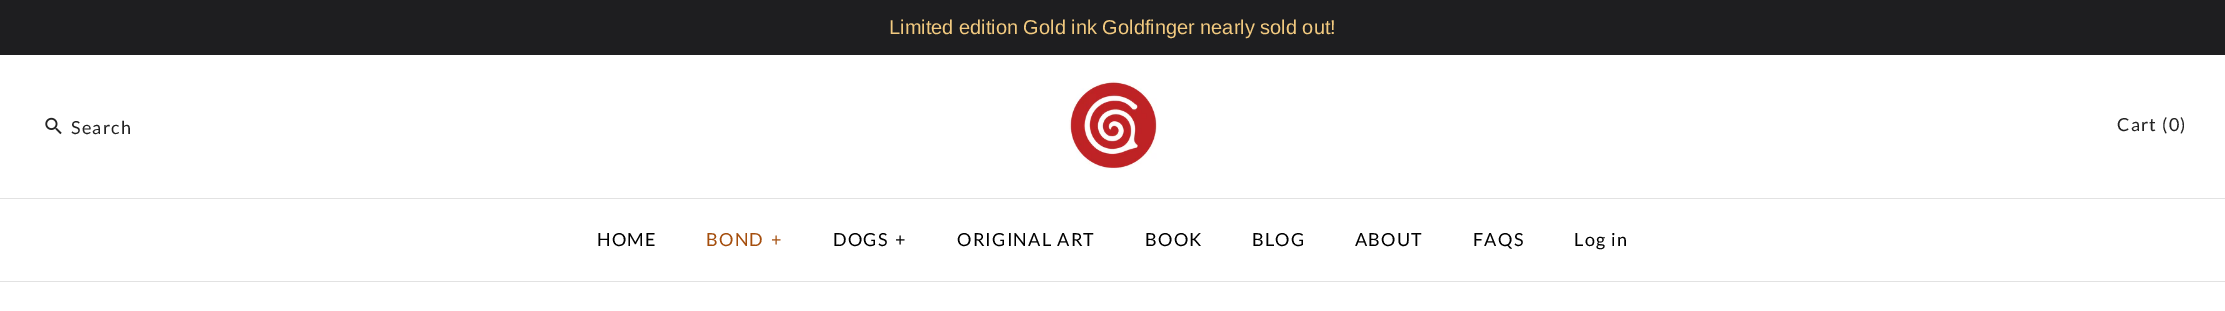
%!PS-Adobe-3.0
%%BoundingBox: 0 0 2225 311
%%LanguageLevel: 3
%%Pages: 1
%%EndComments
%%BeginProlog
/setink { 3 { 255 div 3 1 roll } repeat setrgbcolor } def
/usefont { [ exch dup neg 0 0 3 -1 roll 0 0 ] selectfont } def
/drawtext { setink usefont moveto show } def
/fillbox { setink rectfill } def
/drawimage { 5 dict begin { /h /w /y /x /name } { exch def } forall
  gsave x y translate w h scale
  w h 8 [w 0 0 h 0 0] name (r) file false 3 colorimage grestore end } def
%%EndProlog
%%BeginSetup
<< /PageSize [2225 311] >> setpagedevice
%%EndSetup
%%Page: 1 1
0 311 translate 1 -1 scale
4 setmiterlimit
0 0 2225 311 255 255 255 fillbox
0 0 2225 55 30 30 32 fillbox
(Limited edition Gold ink Goldfinger nearly sold out!) 889 34 /LiberationSans-Regular 20 242 202 128 drawtext
(assets/img1.rgb) 1069 81 88 88 drawimage
(assets/img2.rgb) 45 117 17 18 drawimage
/Lato-Regular 18 usefont
35 35 35 setink
71 134 moveto 1.25 0 (Search) ashow
2117 131 moveto 1.25 0 (Cart \(0\)) ashow
0 281 2225 1 226 226 226 fillbox
0 198 2225 1 226 226 226 fillbox
0 0 0 setink
597 246 moveto 1.25 0 (HOME) ashow
165 78 13 setink
706 246 moveto 1.25 0 (BOND) ashow
771 246 moveto 1.25 0 (+) ashow
0 0 0 setink
833 246 moveto 1.25 0 (DOGS) ashow
895 246 moveto 1.25 0 (+) ashow
957 246 moveto 1.25 0 (ORIGINAL ART) ashow
1145 246 moveto 1.25 0 (BOOK) ashow
1252 246 moveto 1.25 0 (BLOG) ashow
1355 246 moveto 1.25 0 (ABOUT) ashow
1473 246 moveto 1.25 0 (FAQS) ashow
1574 246 moveto 1.25 0 (Log in) ashow
showpage
%%EOF
